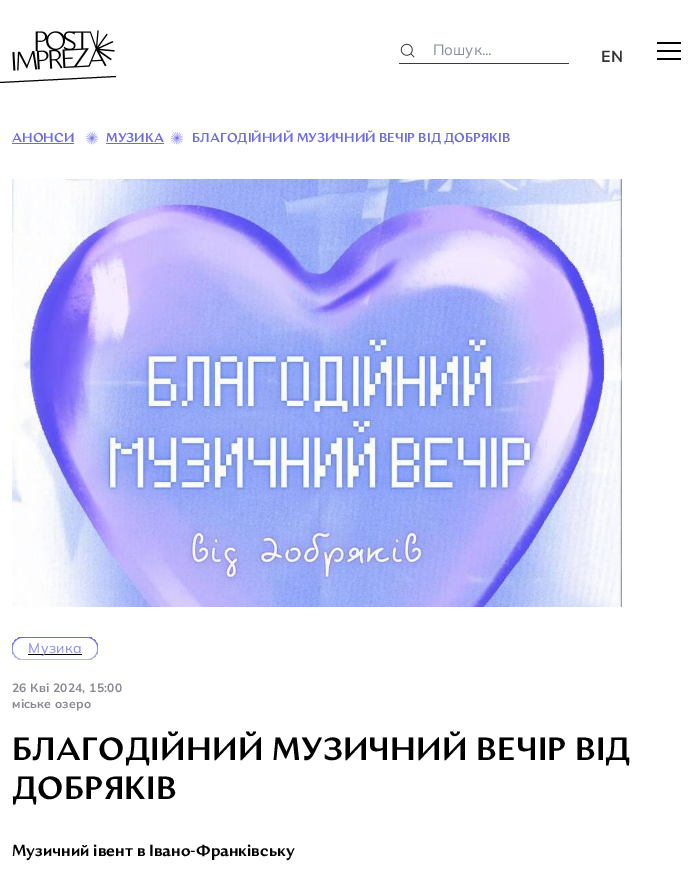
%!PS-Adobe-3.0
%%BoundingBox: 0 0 693 871
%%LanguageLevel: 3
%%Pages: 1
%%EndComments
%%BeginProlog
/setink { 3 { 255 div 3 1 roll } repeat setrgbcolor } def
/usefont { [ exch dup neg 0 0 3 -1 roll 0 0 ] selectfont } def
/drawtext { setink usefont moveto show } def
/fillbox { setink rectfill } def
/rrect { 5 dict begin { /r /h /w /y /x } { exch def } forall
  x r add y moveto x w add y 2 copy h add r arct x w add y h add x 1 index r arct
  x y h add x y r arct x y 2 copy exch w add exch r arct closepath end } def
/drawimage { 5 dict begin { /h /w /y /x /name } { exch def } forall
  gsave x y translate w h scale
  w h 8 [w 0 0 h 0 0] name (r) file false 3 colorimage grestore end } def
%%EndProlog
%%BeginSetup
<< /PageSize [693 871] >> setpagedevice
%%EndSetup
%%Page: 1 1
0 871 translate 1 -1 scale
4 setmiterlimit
0 0 693 871 255 255 255 fillbox
(assets/img1.rgb) 12 30 103 41 drawimage
0 0 0 setink
-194 92 moveto 116 76 lineto 116 77 lineto -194 93 lineto closepath fill
(assets/img2.rgb) 400 43 15 15 drawimage
399 63 170 1 56 56 61 fillbox
(Пошук...) 433 55 /Mulish-Regular 15 131 141 158 drawtext
(EN) 601 62 /Mulish-Bold 16 51 51 51 drawtext
657 42 24 2 0 0 0 fillbox
657 50 24 2 0 0 0 fillbox
657 58 24 2 0 0 0 fillbox
(АНОНСИ) 12 142 /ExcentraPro-SemiBold 13 108 106 236 drawtext
12 143 62 1 108 106 236 fillbox
(assets/img3.rgb) 86 132 12 13 drawimage
(МУЗИКА) 106 142 /ExcentraPro-SemiBold 13 108 106 236 drawtext
106 143 58 1 108 106 236 fillbox
(assets/img3.rgb) 171 132 12 13 drawimage
(БЛАГОДІЙНИЙ МУЗИЧНИЙ ВЕЧІР ВІД ДОБРЯКІВ) 192 142 /ExcentraPro-SemiBold 13 108 106 236 drawtext
(assets/img4.rgb) 12 179 610 428 drawimage
gsave 12 637 86 23 11.5 rrect clip newpath
<< /ShadingType 2 /ColorSpace /DeviceRGB /Coords [55 637 55 660] /Extend [true true] /Function << /FunctionType 2 /Domain [0 1] /C0 [0.424 0.416 0.925] /C1 [0.722 0.722 0.957] /N 1 >> >> shfill grestore
255 255 255 setink
13 638 84 21 10.5 rrect fill
28 654 54 1 0 0 0 fillbox
/Mulish-Medium 14 usefont
146 145 240 setink
28 653 moveto 0.5 0 (Музика) ashow
/Mulish-Bold 12 usefont
135 135 146 setink
12 692 moveto 0.2 0 (26 Кві 2024, 15:00) ashow
12 708 moveto 0.2 0 (міське озеро) ashow
/ExcentraPro-SemiBold 32 usefont
0 0 0 setink
12 760 moveto 0.2 0 (БЛАГОДІЙНИЙ МУЗИЧНИЙ ВЕЧІР ВІД) ashow
12 799 moveto 0.2 0 (ДОБРЯКІВ) ashow
(Музичний івент в Івано-Франківську) 12 856 /ExcentraPro-SemiBold 16 0 0 0 drawtext
showpage
%%EOF
